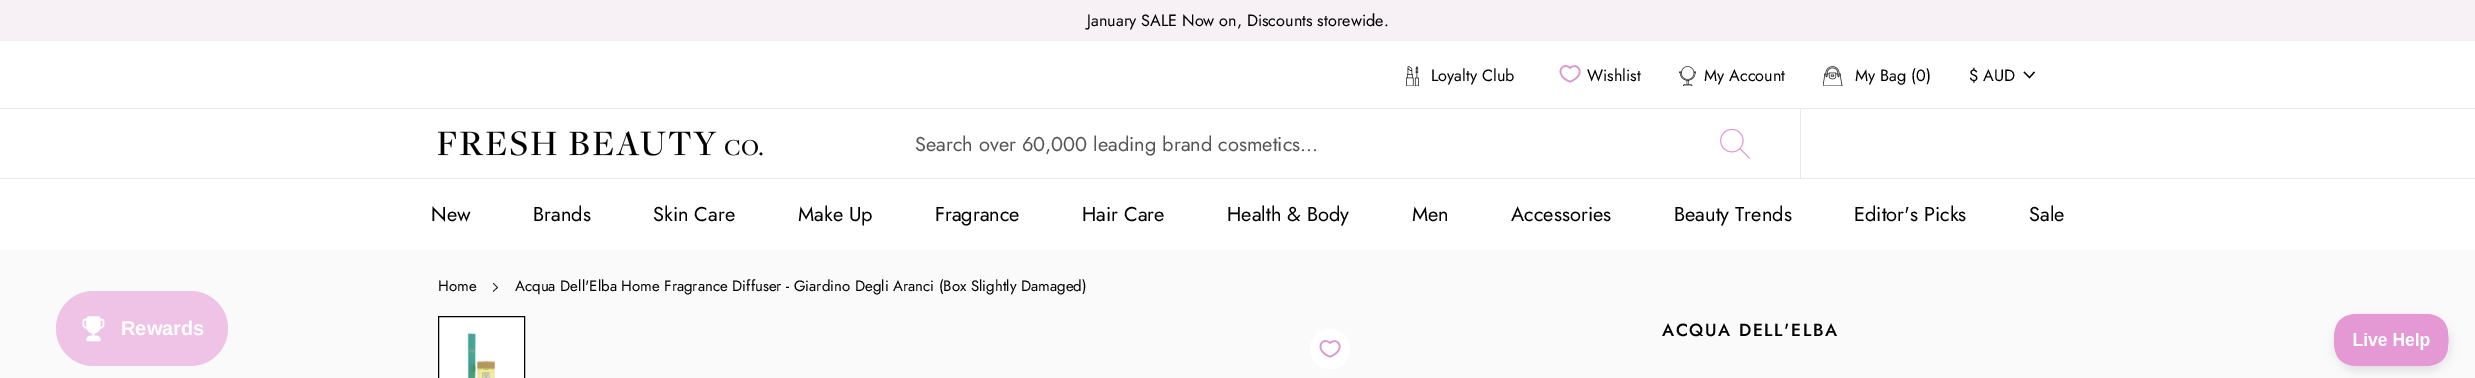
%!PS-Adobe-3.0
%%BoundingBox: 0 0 2475 378
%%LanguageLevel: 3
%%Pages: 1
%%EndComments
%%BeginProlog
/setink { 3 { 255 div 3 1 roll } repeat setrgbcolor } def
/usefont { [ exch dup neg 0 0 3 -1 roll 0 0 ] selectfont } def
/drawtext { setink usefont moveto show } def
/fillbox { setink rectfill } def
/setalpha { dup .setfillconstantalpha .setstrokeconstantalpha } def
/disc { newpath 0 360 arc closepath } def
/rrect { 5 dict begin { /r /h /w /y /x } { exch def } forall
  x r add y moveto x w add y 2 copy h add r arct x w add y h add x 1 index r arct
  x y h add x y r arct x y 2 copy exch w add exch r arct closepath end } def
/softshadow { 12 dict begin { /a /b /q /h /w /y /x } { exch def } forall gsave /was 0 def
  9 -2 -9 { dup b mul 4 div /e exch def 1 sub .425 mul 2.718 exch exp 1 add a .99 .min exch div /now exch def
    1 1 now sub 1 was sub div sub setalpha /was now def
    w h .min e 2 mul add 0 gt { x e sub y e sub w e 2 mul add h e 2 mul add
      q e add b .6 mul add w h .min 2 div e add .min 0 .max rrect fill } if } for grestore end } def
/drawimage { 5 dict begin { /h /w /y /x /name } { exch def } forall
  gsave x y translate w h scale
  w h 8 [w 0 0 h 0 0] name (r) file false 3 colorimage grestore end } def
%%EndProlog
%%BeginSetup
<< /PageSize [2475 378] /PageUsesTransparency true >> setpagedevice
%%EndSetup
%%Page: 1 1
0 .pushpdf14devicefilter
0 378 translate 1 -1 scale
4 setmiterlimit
0 0 2475 378 255 255 255 fillbox
0 250 2475 128 250 250 250 fillbox
239 195 230 setink
56 291 172 75 37.5 rrect fill
(assets/img1.rgb) 82 316 23 26 drawimage
(Rewards) 121 335 /LiberationSans-Bold 20 255 255 255 drawtext
0 0 2475 41 247 241 246 fillbox
(January SALE Now on, Discounts storewide.) 1087 26 /Jost-Regular 16.25 0 0 0 drawtext
0 108 2475 1 233 233 233 fillbox
(assets/img2.rgb) 1406 66 13 20 drawimage
(Loyalty Club) 1431 81 /Jost-Regular 16.25 0 0 0 drawtext
216 154 208 setink
1.6 setlinewidth
1569.5 67.5 moveto 1570 68 lineto 1577 61.5 1585 72.5 1575 79 curveto 1573.5 80 1571.5 81.5 1570 81.5 curveto 1568.5 81.5 1566.5 80 1565 79 curveto 1555 72 1563.5 62 1569.5 67.5 curveto closepath stroke
(Wishlist) 1587 81 /Jost-Regular 16.25 0 0 0 drawtext
(assets/img3.rgb) 1679 66 17 20 drawimage
(My Account) 1704 81 /Jost-Regular 16.25 0 0 0 drawtext
(assets/img4.rgb) 1823 66 20 20 drawimage
(My Bag \(0\)) 1855 81 /Jost-Regular 16.25 0 0 0 drawtext
($ AUD) 1969 81 /Jost-Regular 16.25 0 0 0 drawtext
1.2 setlinewidth
2 setlinecap
2034 72.5 moveto 2029.5 77.5 lineto 2024.5 72.5 lineto stroke
0 178 2475 1 233 233 233 fillbox
(assets/img5.rgb) 438 131 325 25 drawimage
(Search over 60,000 leading brand cosmetics...) 915 151 /Jost-Regular 20 85 85 85 drawtext
(assets/img6.rgb) 1720 129 30 30 drawimage
1800 109 1 69 233 233 233 fillbox
(New) 431 221 /Jost-Regular 20 0 0 0 drawtext
(Brands) 533 221 /Jost-Regular 20 0 0 0 drawtext
(Skin Care) 653 221 /Jost-Regular 20 0 0 0 drawtext
(Make Up) 798 221 /Jost-Regular 20 0 0 0 drawtext
(Fragrance) 935 221 /Jost-Regular 20 0 0 0 drawtext
(Hair Care) 1082 221 /Jost-Regular 20 0 0 0 drawtext
(Health & Body) 1227 221 /Jost-Regular 20 0 0 0 drawtext
(Men) 1412 221 /Jost-Regular 20 0 0 0 drawtext
(Accessories) 1511 221 /Jost-Regular 20 0 0 0 drawtext
(Beauty Trends) 1674 221 /Jost-Regular 20 0 0 0 drawtext
(Editor's Picks) 1854 221 /Jost-Regular 20 0 0 0 drawtext
(Sale) 2029 221 /Jost-Regular 20 0 0 0 drawtext
(Home) 438 291 /Jost-Regular 15 0 0 0 drawtext
gsave
493 283 5 10 rectclip
0.6 setlinewidth
0 setlinecap
492.5 282.5 moveto 497.5 287.5 lineto 492.5 292 lineto stroke
grestore
(Acqua Dell'Elba Home Fragrance Diffuser - Giardino Degli Aranci \(Box Slightly Damaged\)) 515 291 /Jost-Regular 15 0 0 0 drawtext
255 255 255 setink
438.5 316.5 moveto 524.5 316.5 lineto 524.5 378.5 lineto 438.5 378.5 lineto closepath gsave fill grestore
0 0 0 setink
1 setlinewidth
0 setlinecap
stroke
(assets/img7.rgb) 467 333 29 45 drawimage
255 255 255 setink
1330 349 20 disc fill
216 154 208 setink
1.6 setlinewidth
1329.5 342.5 moveto 1330 343 lineto 1337 336.5 1345 347.5 1335 354 curveto 1333.5 355 1331.5 356.5 1330 356.5 curveto 1328.5 356.5 1326.5 355 1325 354 curveto 1315 347 1323.5 337 1329.5 342.5 curveto closepath stroke
/Jost-Medium 17.5 usefont
0 0 0 setink
1662 336 moveto 1.6 0 (ACQUA DELL'ELBA) ashow
2334 319 116 52 26 4.5 0.1 softshadow
(assets/img8.rgb) 2333 313 116 54 drawimage
.poppdf14devicefilter showpage
%%EOF
